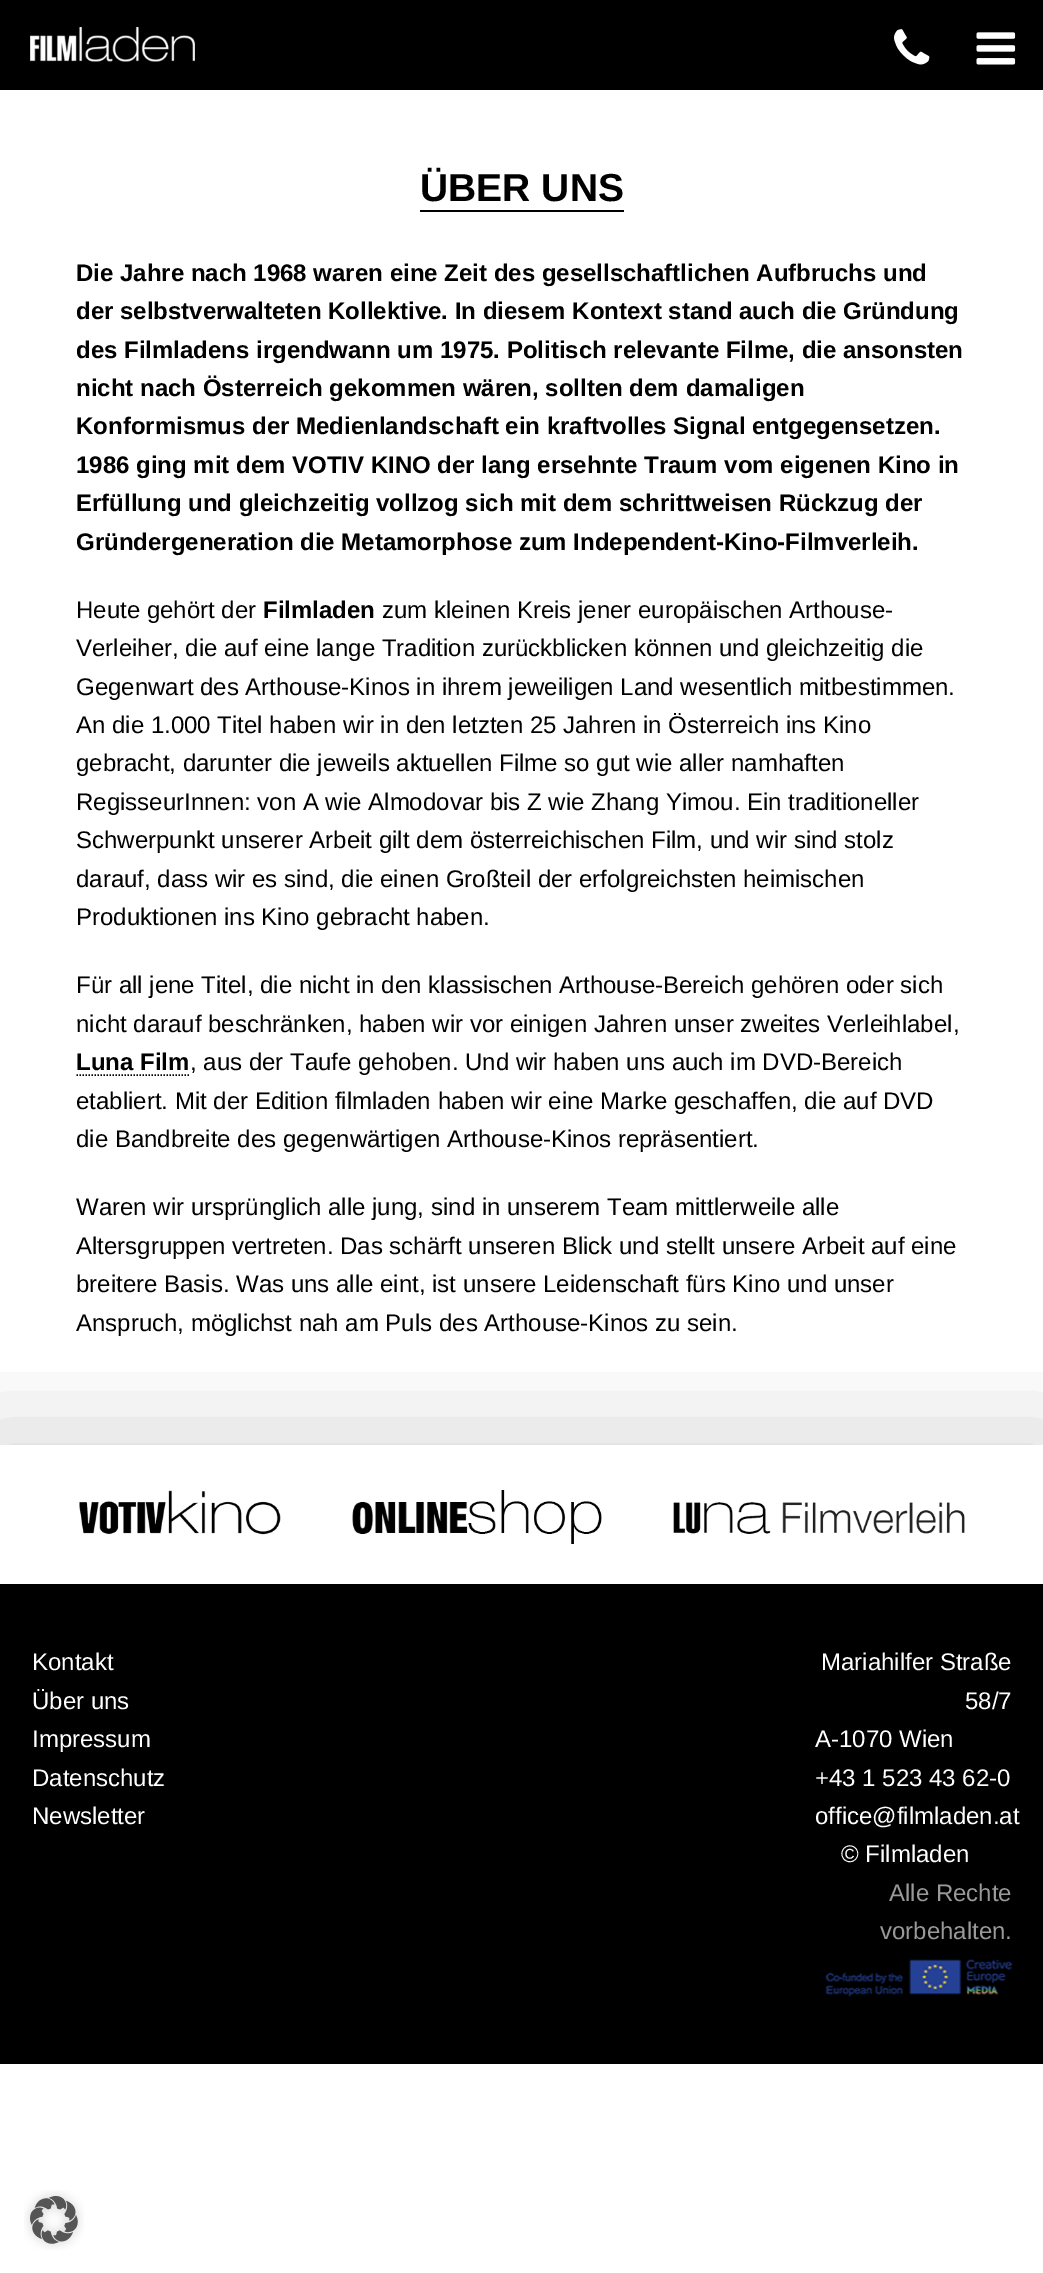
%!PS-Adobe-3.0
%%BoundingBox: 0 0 1043 2273
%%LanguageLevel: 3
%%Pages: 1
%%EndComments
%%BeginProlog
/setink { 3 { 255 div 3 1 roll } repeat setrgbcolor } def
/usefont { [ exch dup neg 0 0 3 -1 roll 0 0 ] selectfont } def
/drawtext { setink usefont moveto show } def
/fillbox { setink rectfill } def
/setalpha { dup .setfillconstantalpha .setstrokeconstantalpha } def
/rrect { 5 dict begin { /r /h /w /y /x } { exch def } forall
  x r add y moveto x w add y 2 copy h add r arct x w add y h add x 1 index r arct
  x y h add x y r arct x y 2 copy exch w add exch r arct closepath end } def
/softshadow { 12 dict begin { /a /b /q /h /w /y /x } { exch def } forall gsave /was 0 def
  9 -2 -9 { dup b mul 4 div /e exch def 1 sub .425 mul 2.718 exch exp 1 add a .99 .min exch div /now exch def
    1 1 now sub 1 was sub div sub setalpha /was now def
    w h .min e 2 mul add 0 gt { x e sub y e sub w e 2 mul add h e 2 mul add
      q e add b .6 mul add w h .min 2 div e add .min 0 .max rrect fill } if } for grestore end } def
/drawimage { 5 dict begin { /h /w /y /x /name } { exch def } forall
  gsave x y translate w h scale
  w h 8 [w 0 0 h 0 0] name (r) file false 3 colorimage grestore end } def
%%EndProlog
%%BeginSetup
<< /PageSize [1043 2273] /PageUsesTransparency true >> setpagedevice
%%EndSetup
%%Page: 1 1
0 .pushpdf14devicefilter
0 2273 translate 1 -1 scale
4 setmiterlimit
0 0 1043 2273 255 255 255 fillbox
0 0 1043 90 0 0 0 fillbox
(assets/img1.rgb) 30 27 165 35 drawimage
(assets/img2.rgb) 894 29 36 36 drawimage
(assets/img3.rgb) 976 32 40 33 drawimage
(ÜBER UNS) 420 201 /LiberationSans-Bold 39 0 0 0 drawtext
420 210 204 2 0 0 0 fillbox
(Die Jahre nach 1968 waren eine Zeit des gesellschaftlichen Aufbruchs und) 76 281 /LiberationSans-Bold 24 0 0 0 drawtext
(der selbstverwalteten Kollektive. In diesem Kontext stand auch die Gründung) 76 319 /LiberationSans-Bold 24 0 0 0 drawtext
(des Filmladens irgendwann um 1975. Politisch relevante Filme, die ansonsten) 76 358 /LiberationSans-Bold 24 0 0 0 drawtext
(nicht nach Österreich gekommen wären, sollten dem damaligen) 76 396 /LiberationSans-Bold 24 0 0 0 drawtext
(Konformismus der Medienlandschaft ein kraftvolles Signal entgegensetzen.) 76 434 /LiberationSans-Bold 24 0 0 0 drawtext
(1986 ging mit dem VOTIV KINO der lang ersehnte Traum vom eigenen Kino in) 76 473 /LiberationSans-Bold 24 0 0 0 drawtext
(Erfüllung und gleichzeitig vollzog sich mit dem schrittweisen Rückzug der) 76 511 /LiberationSans-Bold 24 0 0 0 drawtext
(Gründergeneration die Metamorphose zum Independent-Kino-Filmverleih.) 76 550 /LiberationSans-Bold 24 0 0 0 drawtext
(Heute gehört der) 76 618 /LiberationSans-Regular 24 0 0 0 drawtext
(Filmladen) 263 618 /LiberationSans-Bold 24 0 0 0 drawtext
(zum kleinen Kreis jener europäischen Arthouse-) 382 618 /LiberationSans-Regular 24 0 0 0 drawtext
(Verleiher, die auf eine lange Tradition zurückblicken können und gleichzeitig die) 76 656 /LiberationSans-Regular 24 0 0 0 drawtext
(Gegenwart des Arthouse-Kinos in ihrem jeweiligen Land wesentlich mitbestimmen.) 76 695 /LiberationSans-Regular 24 0 0 0 drawtext
(An die 1.000 Titel haben wir in den letzten 25 Jahren in Österreich ins Kino) 76 733 /LiberationSans-Regular 24 0 0 0 drawtext
(gebracht, darunter die jeweils aktuellen Filme so gut wie aller namhaften) 76 771 /LiberationSans-Regular 24 0 0 0 drawtext
(RegisseurInnen: von A wie Almodovar bis Z wie Zhang Yimou. Ein traditioneller) 76 810 /LiberationSans-Regular 24 0 0 0 drawtext
(Schwerpunkt unserer Arbeit gilt dem österreichischen Film, und wir sind stolz) 76 848 /LiberationSans-Regular 24 0 0 0 drawtext
(darauf, dass wir es sind, die einen Großteil der erfolgreichsten heimischen) 76 887 /LiberationSans-Regular 24 0 0 0 drawtext
(Produktionen ins Kino gebracht haben.) 76 925 /LiberationSans-Regular 24 0 0 0 drawtext
(Für all jene Titel, die nicht in den klassischen Arthouse-Bereich gehören oder sich) 76 993 /LiberationSans-Regular 24 0 0 0 drawtext
(nicht darauf beschränken, haben wir vor einigen Jahren unser zweites Verleihlabel,) 76 1032 /LiberationSans-Regular 24 0 0 0 drawtext
(Luna Film) 76 1070 /LiberationSans-Bold 24 0 0 0 drawtext
1.5 setlinewidth
[1.5 1.5] 0 setdash
76.5 1075 moveto 189 1075 lineto stroke
(, aus der Taufe gehoben. Und wir haben uns auch im DVD-Bereich) 190 1070 /LiberationSans-Regular 24 0 0 0 drawtext
(etabliert. Mit der Edition filmladen haben wir eine Marke geschaffen, die auf DVD) 76 1109 /LiberationSans-Regular 24 0 0 0 drawtext
(die Bandbreite des gegenwärtigen Arthouse-Kinos repräsentiert.) 76 1147 /LiberationSans-Regular 24 0 0 0 drawtext
(Waren wir ursprünglich alle jung, sind in unserem Team mittlerweile alle) 76 1215 /LiberationSans-Regular 24 0 0 0 drawtext
(Altersgruppen vertreten. Das schärft unseren Blick und stellt unsere Arbeit auf eine) 76 1254 /LiberationSans-Regular 24 0 0 0 drawtext
(breitere Basis. Was uns alle eint, ist unsere Leidenschaft fürs Kino und unser) 76 1292 /LiberationSans-Regular 24 0 0 0 drawtext
(Anspruch, möglichst nah am Puls des Arthouse-Kinos zu sein.) 76 1331 /LiberationSans-Regular 24 0 0 0 drawtext
gsave
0 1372 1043 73 rectclip
-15 1430 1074 169 0 52.5 0.15 softshadow
grestore
(assets/img4.rgb) 79 1490 202 45 drawimage
(assets/img5.rgb) 352 1490 250 54 drawimage
(assets/img6.rgb) 673 1502 292 32 drawimage
0 1584 1043 480 0 0 0 fillbox
(Kontakt) 32 1670 /LiberationSans-Regular 24 255 255 255 drawtext
(Über uns) 32 1709 /LiberationSans-Regular 24 255 255 255 drawtext
(Impressum) 32 1747 /LiberationSans-Regular 24 255 255 255 drawtext
(Datenschutz) 32 1786 /LiberationSans-Regular 24 255 255 255 drawtext
(Newsletter) 32 1824 /LiberationSans-Regular 24 255 255 255 drawtext
(Mariahilfer Straße) 821 1670 /LiberationSans-Regular 24 255 255 255 drawtext
(58/7) 965 1709 /LiberationSans-Regular 24 255 255 255 drawtext
(A-1070 Wien) 815 1747 /LiberationSans-Regular 24 255 255 255 drawtext
(+43 1 523 43 62-0) 815 1786 /LiberationSans-Regular 24 255 255 255 drawtext
(office@filmladen.at) 815 1824 /LiberationSans-Regular 24 255 255 255 drawtext
(© Filmladen) 841 1862 /LiberationSans-Regular 24 255 255 255 drawtext
(Alle Rechte) 889 1901 /LiberationSans-Regular 24 153 153 153 drawtext
(vorbehalten.) 880 1939 /LiberationSans-Regular 24 153 153 153 drawtext
(assets/img7.rgb) 825 1959 188 38 drawimage
(assets/img8.rgb) 24 2190 60 60 drawimage
.poppdf14devicefilter showpage
%%EOF
